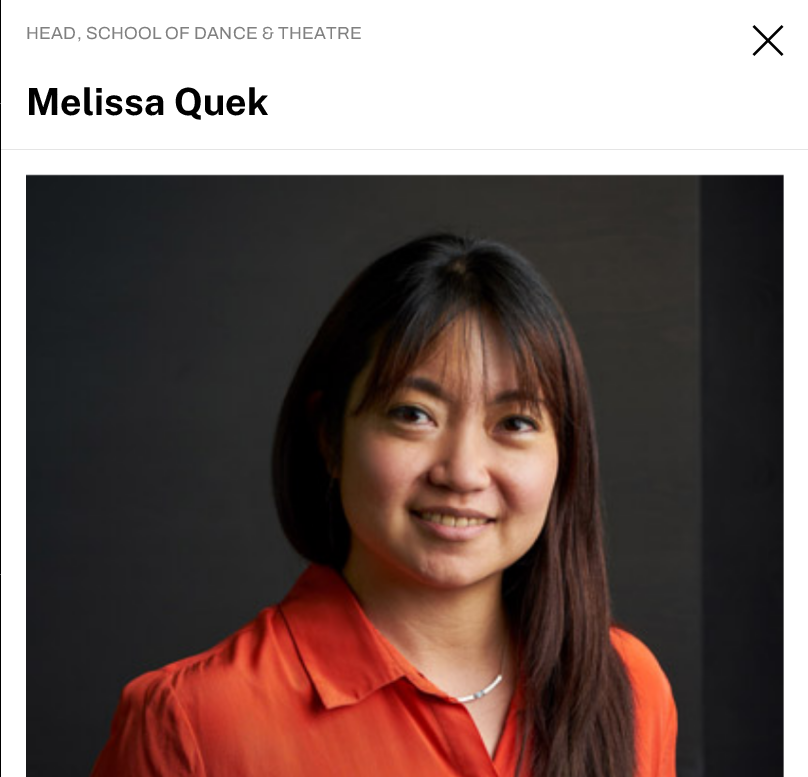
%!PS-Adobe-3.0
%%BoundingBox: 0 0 808 777
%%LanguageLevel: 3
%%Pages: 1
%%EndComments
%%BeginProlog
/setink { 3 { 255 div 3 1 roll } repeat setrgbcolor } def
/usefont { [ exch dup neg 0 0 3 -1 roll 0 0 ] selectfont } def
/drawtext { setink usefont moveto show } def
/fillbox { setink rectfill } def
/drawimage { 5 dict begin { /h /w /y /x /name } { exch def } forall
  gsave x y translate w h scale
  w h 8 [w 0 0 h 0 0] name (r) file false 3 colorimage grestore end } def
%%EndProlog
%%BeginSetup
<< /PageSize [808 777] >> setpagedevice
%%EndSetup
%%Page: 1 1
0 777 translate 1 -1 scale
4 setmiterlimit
0 0 808 777 0 0 0 fillbox
0 103 1 1 94 94 94 fillbox
1 0 807 777 255 255 255 fillbox
1 149 807 1 229 229 229 fillbox
/Archivo-Regular 17.5 usefont
128 128 128 setink
26 39 moveto 0.25 0 (HEAD, SCHOOL OF DANCE & THEATRE) ashow
(Melissa Quek) 26 115 /PublicSans-Bold 37.5 0 0 0 drawtext
2.3 setlinewidth
753.5 26 moveto 782.5 55 lineto 753.5 55 moveto 782.5 26 lineto stroke
(assets/img1.rgb) 26 174 758 603 drawimage
0 574 1 1 94 94 94 fillbox
showpage
%%EOF
